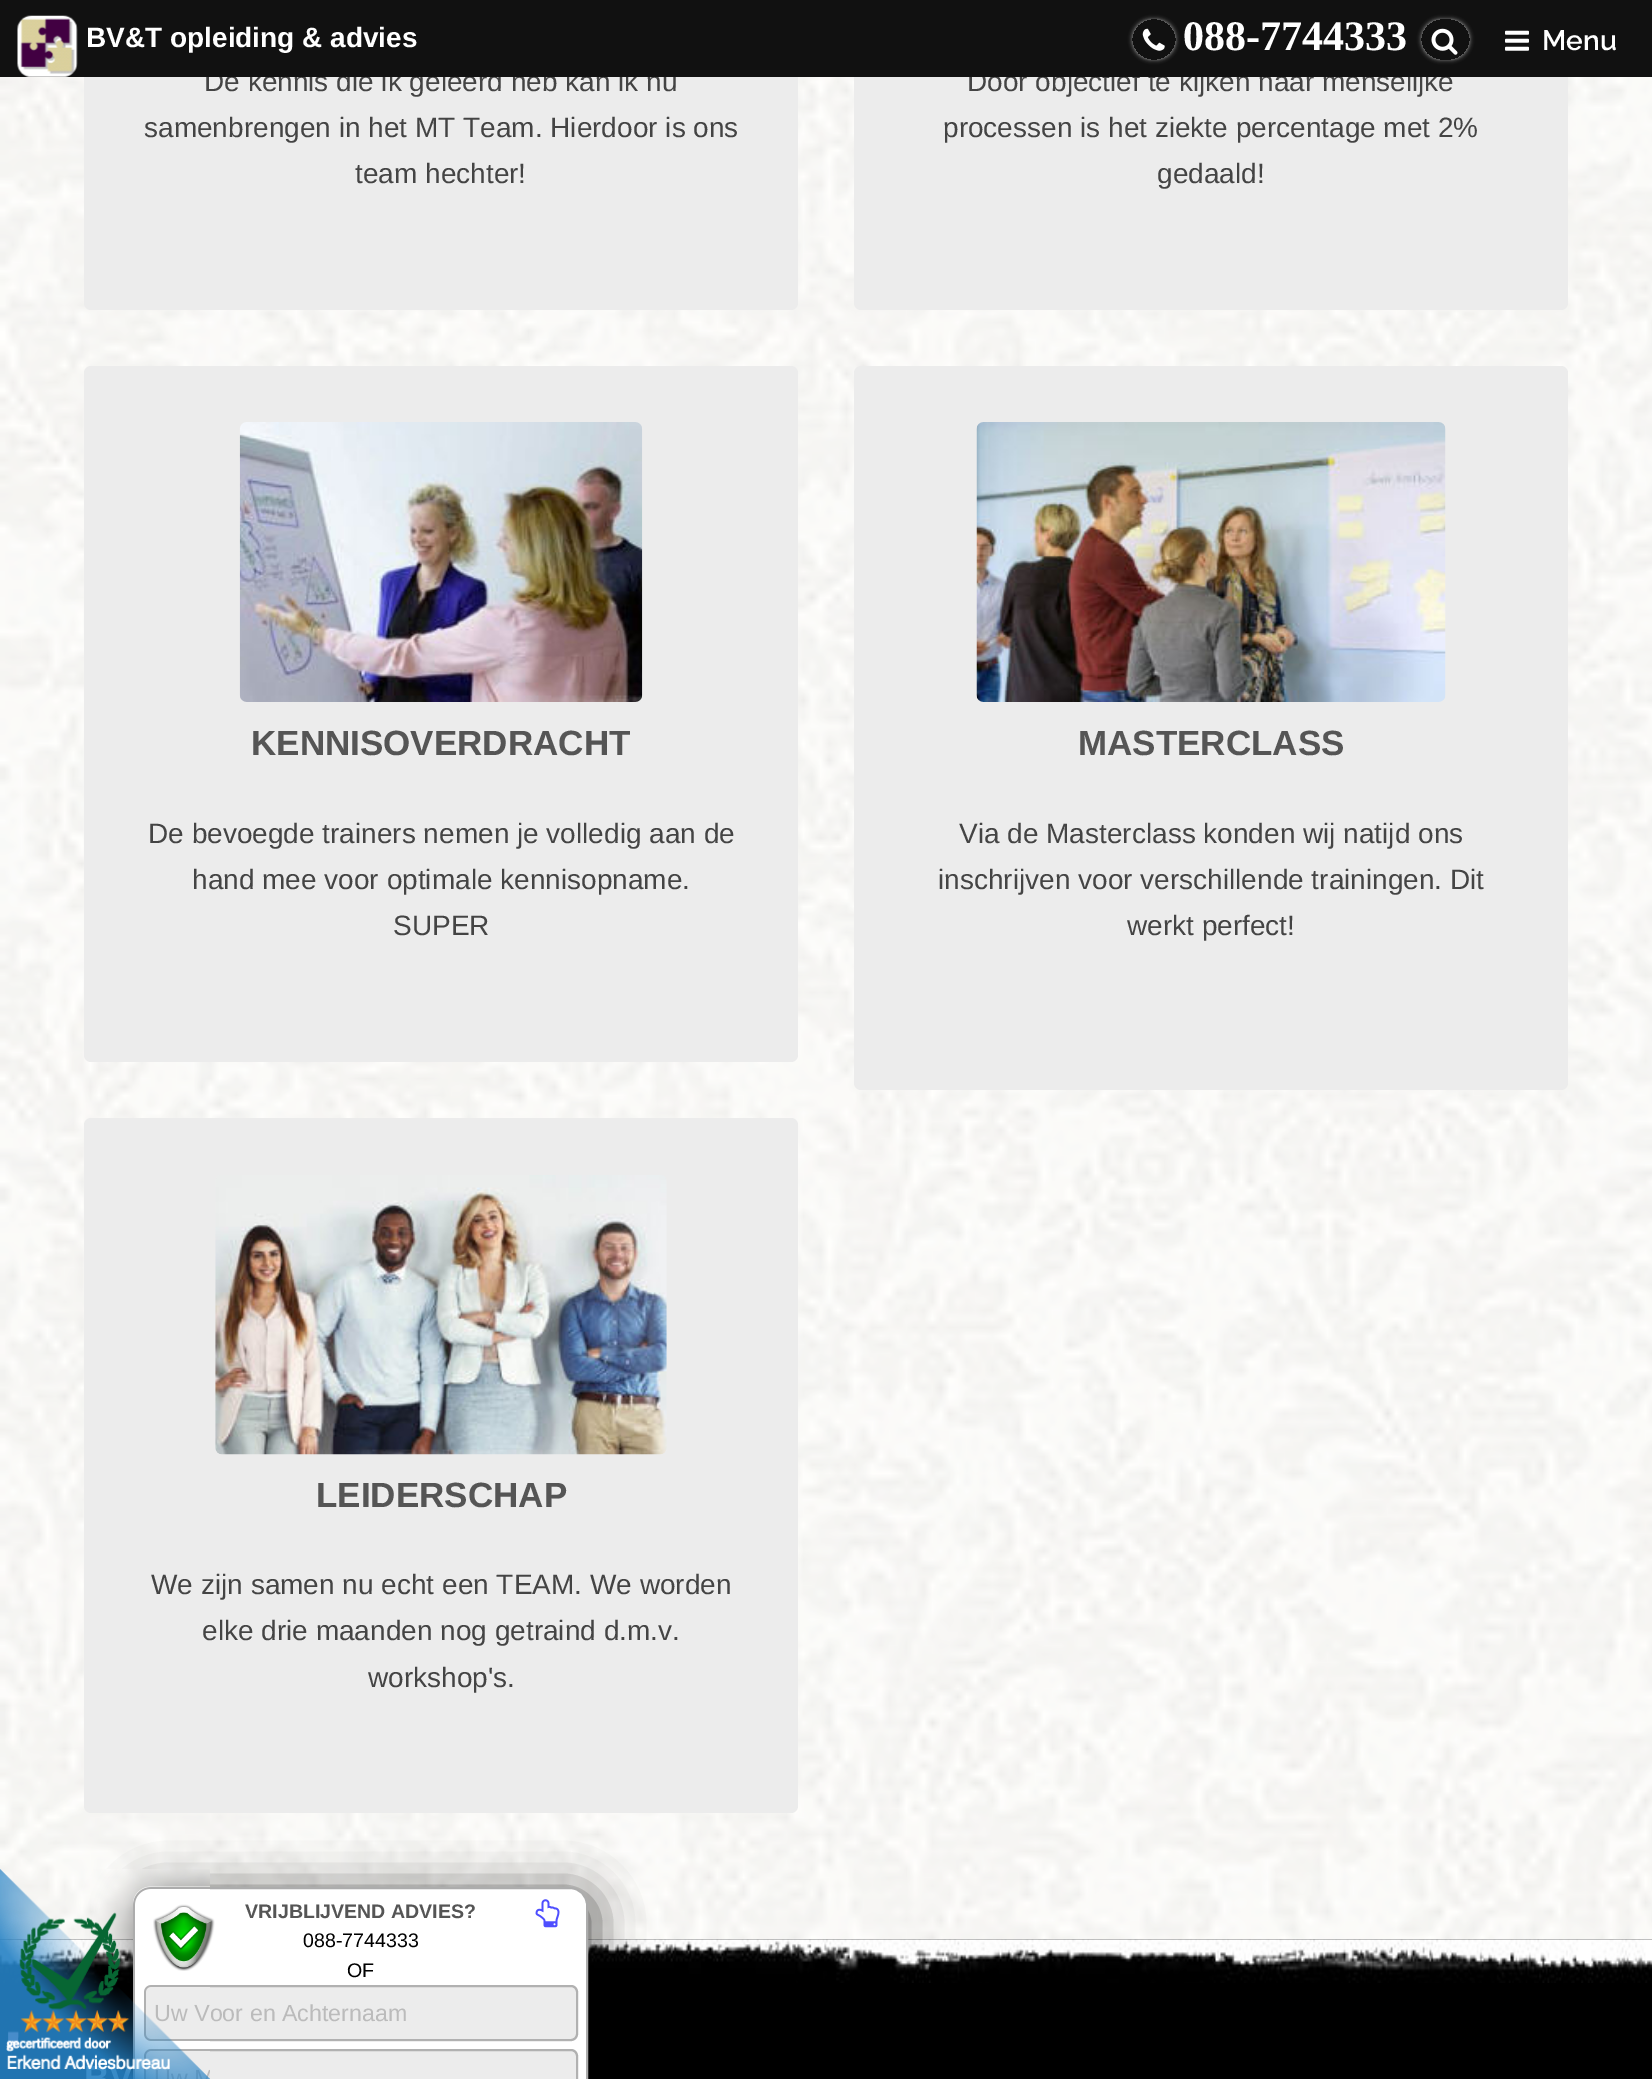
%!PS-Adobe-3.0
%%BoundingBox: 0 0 1652 2079
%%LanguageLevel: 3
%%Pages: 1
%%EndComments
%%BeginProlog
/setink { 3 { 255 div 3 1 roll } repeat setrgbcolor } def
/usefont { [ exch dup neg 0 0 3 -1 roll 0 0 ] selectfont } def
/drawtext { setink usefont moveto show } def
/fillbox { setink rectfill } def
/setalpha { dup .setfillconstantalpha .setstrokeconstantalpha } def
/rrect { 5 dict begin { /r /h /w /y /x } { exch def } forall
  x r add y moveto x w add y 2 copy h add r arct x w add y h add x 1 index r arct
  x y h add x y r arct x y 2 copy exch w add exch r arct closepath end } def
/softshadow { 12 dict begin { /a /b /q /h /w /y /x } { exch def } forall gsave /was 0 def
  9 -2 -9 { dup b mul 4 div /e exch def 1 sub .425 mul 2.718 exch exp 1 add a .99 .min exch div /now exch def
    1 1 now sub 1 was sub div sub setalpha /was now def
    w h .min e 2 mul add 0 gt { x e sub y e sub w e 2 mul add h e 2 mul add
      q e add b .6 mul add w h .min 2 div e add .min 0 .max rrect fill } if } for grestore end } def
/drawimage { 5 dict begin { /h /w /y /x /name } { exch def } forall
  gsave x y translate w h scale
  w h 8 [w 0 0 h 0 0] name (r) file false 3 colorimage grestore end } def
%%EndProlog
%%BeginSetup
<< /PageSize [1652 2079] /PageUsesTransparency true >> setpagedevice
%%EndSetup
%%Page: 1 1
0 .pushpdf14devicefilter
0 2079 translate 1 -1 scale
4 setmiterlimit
0 0 1652 2079 255 255 255 fillbox
(assets/img8.rgb) 0 77 1652 1862 drawimage
236 236 236 setink
84 -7 714 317 7 rrect fill
(De kennis die ik geleerd heb kan ik nu) 204 91 /LiberationSans-Regular 28 68 68 68 drawtext
236 236 236 setink
854 -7 714 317 7 rrect fill
(Door objectief te kijken naar menselijke) 967 91 /LiberationSans-Regular 28 68 68 68 drawtext
0 0 1652 77 17 17 17 fillbox
(assets/img1.rgb) 17 15 61 62 drawimage
(BV&T opleiding & advies) 86 47 /LiberationSans-Bold 28 255 255 255 drawtext
gsave
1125 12 moveto 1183 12 lineto 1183 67 lineto 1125 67 lineto closepath 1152.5 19 moveto 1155.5 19 lineto 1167 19 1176 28 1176 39.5 curveto 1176 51 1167 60 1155.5 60 curveto 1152.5 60 lineto 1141 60 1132 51 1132 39.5 curveto 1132 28 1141 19 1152.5 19 curveto closepath eoclip newpath
136 136 136 setink
1132 19 44 41 20.5 2 1 softshadow
grestore
(assets/img2.rgb) 1142 28 23 23 drawimage
(088-7744333) 1183 50 /LiberationSerif-Bold 42 255 255 255 drawtext
gsave
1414 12 moveto 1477 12 lineto 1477 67 lineto 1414 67 lineto closepath 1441.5 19 moveto 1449.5 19 lineto 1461 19 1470 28 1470 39.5 curveto 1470 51 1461 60 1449.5 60 curveto 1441.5 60 lineto 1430 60 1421 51 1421 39.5 curveto 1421 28 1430 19 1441.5 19 curveto closepath eoclip newpath
136 136 136 setink
1421 19 49 41 20.5 2 1 softshadow
grestore
(assets/img3.rgb) 1431 28 27 27 drawimage
(assets/img4.rgb) 1505 30 24 21 drawimage
(Menu) 1542 50 /Raleway-SemiBold 28 255 255 255 drawtext
(samenbrengen in het MT Team. Hierdoor is ons) 144 137 /LiberationSans-Regular 28 68 68 68 drawtext
(team hechter!) 355 183 /LiberationSans-Regular 28 68 68 68 drawtext
(processen is het ziekte percentage met 2%) 943 137 /LiberationSans-Regular 28 68 68 68 drawtext
(gedaald!) 1157 183 /LiberationSans-Regular 28 68 68 68 drawtext
236 236 236 setink
84 366 714 696 7 rrect fill
(assets/img5.rgb) 239 422 404 280 drawimage
(KENNISOVERDRACHT) 251 755 /LiberationSans-Bold 35 85 85 85 drawtext
(De bevoegde trainers nemen je volledig aan de) 148 843 /LiberationSans-Regular 28 68 68 68 drawtext
(hand mee voor optimale kennisopname.) 192 889 /LiberationSans-Regular 28 68 68 68 drawtext
(SUPER) 393 935 /LiberationSans-Regular 28 68 68 68 drawtext
236 236 236 setink
854 366 714 724 7 rrect fill
(assets/img6.rgb) 976 422 470 280 drawimage
(MASTERCLASS) 1078 755 /LiberationSans-Bold 35 85 85 85 drawtext
(Via de Masterclass konden wij natijd ons) 959 843 /LiberationSans-Regular 28 68 68 68 drawtext
(inschrijven voor verschillende trainingen. Dit) 938 889 /LiberationSans-Regular 28 68 68 68 drawtext
(werkt perfect!) 1127 935 /LiberationSans-Regular 28 68 68 68 drawtext
236 236 236 setink
84 1118 714 695 7 rrect fill
(assets/img7.rgb) 215 1175 452 280 drawimage
(LEIDERSCHAP) 316 1507 /LiberationSans-Bold 35 85 85 85 drawtext
(We zijn samen nu echt een TEAM. We worden) 151 1594 /LiberationSans-Regular 28 68 68 68 drawtext
(elke drie maanden nog getraind d.m.v.) 202 1640 /LiberationSans-Regular 28 68 68 68 drawtext
(workshop's.) 368 1687 /LiberationSans-Regular 28 68 68 68 drawtext
0 1939 1652 140 0 0 0 fillbox
(assets/img9.rgb) 0 1939 1652 44 drawimage
135 1890 462 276 21 22 0.59 softshadow
255 255 255 setink
134 1888 453 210 17 rrect gsave fill grestore
172 172 172 setink
2 setlinewidth
stroke
(assets/img11.rgb) 153 1904 62 67 drawimage
236 236 236 setink
144 1985 434 56 7 rrect fill
0.25 setalpha
0 0 0 setink
145 1986 432 54 6 rrect stroke
1 setalpha
(Uw Voor en Achternaam) 154 2021 /LiberationSans-Regular 23.25 187 187 187 drawtext
236 236 236 setink
144 2049 434 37 7 rrect fill
0.25 setalpha
0 0 0 setink
145 2050 432 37 6 rrect stroke
1 setalpha
(assets/img10.rgb) 0 1869 210 210 drawimage
(VRIJBLIJVEND ADVIES?) 245 1918 /LiberationSans-Bold 19.6 85 85 85 drawtext
(088-7744333) 303 1947 /LiberationSans-Regular 19.6 0 0 0 drawtext
(OF) 347 1977 /LiberationSans-Regular 19.6 0 0 0 drawtext
(assets/img12.rgb) 535 1899 25 29 drawimage
.poppdf14devicefilter showpage
%%EOF
